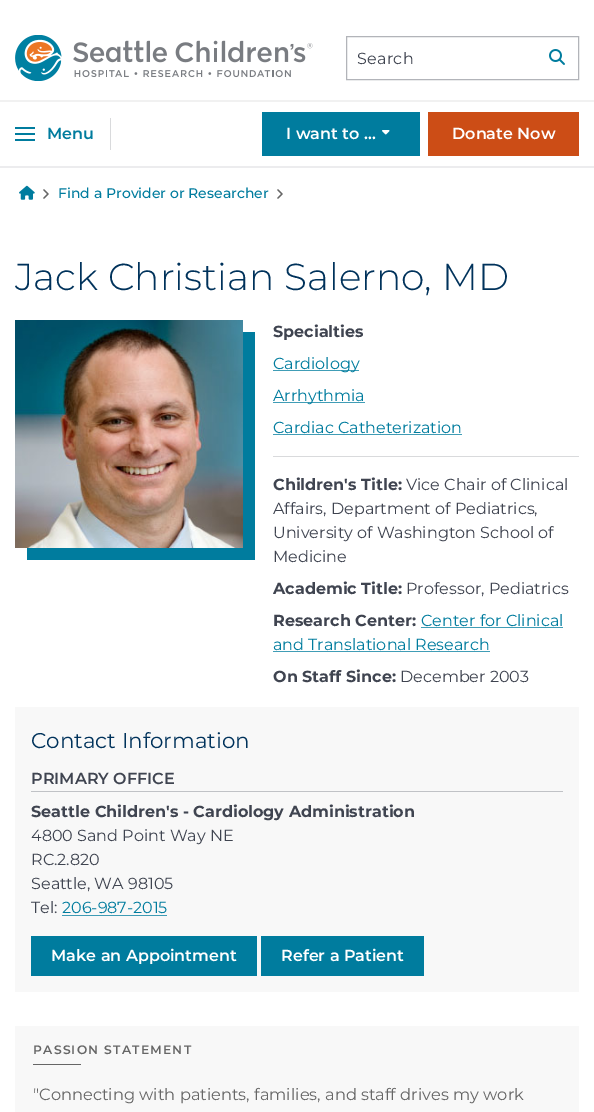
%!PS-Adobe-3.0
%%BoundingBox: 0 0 594 1112
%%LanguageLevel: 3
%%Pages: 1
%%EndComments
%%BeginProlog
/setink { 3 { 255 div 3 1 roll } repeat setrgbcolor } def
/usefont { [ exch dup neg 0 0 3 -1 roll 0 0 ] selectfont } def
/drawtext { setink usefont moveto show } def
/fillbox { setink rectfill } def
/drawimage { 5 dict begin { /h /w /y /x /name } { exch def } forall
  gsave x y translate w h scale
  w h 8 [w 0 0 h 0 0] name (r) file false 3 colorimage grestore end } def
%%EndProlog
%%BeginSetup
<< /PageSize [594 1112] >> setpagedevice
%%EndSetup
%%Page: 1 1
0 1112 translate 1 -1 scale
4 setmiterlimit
0 0 594 1112 255 255 255 fillbox
0 166 594 2 236 236 238 fillbox
0 100 594 2 241 241 241 fillbox
(assets/img1.rgb) 15 35 298 46 drawimage
178 180 185 setink
346.5 36.5 232 43 rectstroke
/Montserrat-Regular 16 usefont
63 68 80 setink
357 64 moveto 0.25 0 (Search) ashow
(assets/img2.rgb) 549 49 16 16 drawimage
110 118 1 32 217 218 220 fillbox
15 133 20 2 0 124 158 fillbox
15 127 20 2 0 124 158 fillbox
15 139 20 2 0 124 158 fillbox
(Menu) 47 139 /Montserrat-SemiBold 16 0 124 158 drawtext
262 112 158 44 0 124 158 fillbox
(I want to …) 286 139 /Montserrat-SemiBold 16 255 255 255 drawtext
(assets/img3.rgb) 382 130 8 5 drawimage
428 112 151 44 204 77 22 fillbox
(Donate Now) 452 139 /Montserrat-SemiBold 16 255 255 255 drawtext
(assets/img4.rgb) 19 185 16 15 drawimage
102 102 102 setink
1.3 setlinewidth
1 setlinecap
1 setlinejoin
44 190 moveto 48 194 lineto 44 198 lineto stroke
(Find a Provider or Researcher) 58 198 /Montserrat-Medium 14 0 124 158 drawtext
102 102 102 setink
278 190 moveto 282 194 lineto 278 198 lineto stroke
(Jack Christian Salerno, MD) 15 290 /Montserrat-Thin 37.6 0 50 91 drawtext
27 332 228 228 0 124 158 fillbox
(assets/img5.rgb) 15 320 228 228 drawimage
(Specialties) 273 337 /Montserrat-Bold 16 63 68 80 drawtext
273 370 86 1 64 157 182 fillbox
(Cardiology) 273 369 /Montserrat-Regular 16 0 124 158 drawtext
273 402 92 1 64 157 182 fillbox
(Arrhythmia) 273 401 /Montserrat-Regular 16 0 124 158 drawtext
(Cardiac Catheterization) 273 433 /Montserrat-Regular 16 0 124 158 drawtext
273 434 189 1 64 157 182 fillbox
273 456 306 1 217 218 220 fillbox
(Children's Title:) 273 490 /Montserrat-Bold 16 63 68 80 drawtext
(Vice Chair of Clinical) 406 490 /Montserrat-Regular 16 63 68 80 drawtext
(Affairs, Department of Pediatrics,) 273 514 /Montserrat-Regular 16 63 68 80 drawtext
(University of Washington School of) 273 538 /Montserrat-Regular 16 63 68 80 drawtext
(Medicine) 273 562 /Montserrat-Regular 16 63 68 80 drawtext
(Academic Title:) 273 594 /Montserrat-Bold 16 63 68 80 drawtext
(Professor, Pediatrics) 406 594 /Montserrat-Regular 16 63 68 80 drawtext
(Research Center:) 273 626 /Montserrat-Bold 16 63 68 80 drawtext
(Center for Clinical) 421 626 /Montserrat-Regular 16 0 124 158 drawtext
421 627 142 1 64 157 182 fillbox
(and Translational Research) 273 650 /Montserrat-Regular 16 0 124 158 drawtext
273 651 217 1 64 157 182 fillbox
(On Staff Since:) 273 682 /Montserrat-Bold 16 63 68 80 drawtext
(December 2003) 400 682 /Montserrat-Regular 16 63 68 80 drawtext
15 707 564 285 248 248 248 fillbox
(Contact Information) 31 748 /Montserrat-Regular 21.4 0 50 91 drawtext
31 791 532 1 192 194 198 fillbox
(PRIMARY OFFICE) 31 784 /Montserrat-SemiBold 16 63 68 80 drawtext
(Seattle Children's - Cardiology Administration) 31 817 /Montserrat-Bold 16 63 68 80 drawtext
(4800 Sand Point Way NE) 31 841 /Montserrat-Regular 16 63 68 80 drawtext
(RC.2.820) 31 865 /Montserrat-Regular 16 63 68 80 drawtext
(Seattle, WA 98105) 31 889 /Montserrat-Regular 16 63 68 80 drawtext
(Tel:) 31 913 /Montserrat-Regular 16 63 68 80 drawtext
(206-987-2015) 62 913 /Montserrat-Regular 16 0 124 158 drawtext
62 915 105 1 62 155 181 fillbox
31 936 226 40 0 124 158 fillbox
(Make an Appointment) 51 961 /Montserrat-SemiBold 16 255 255 255 drawtext
261 936 163 40 0 124 158 fillbox
(Refer a Patient) 281 961 /Montserrat-SemiBold 16 255 255 255 drawtext
15 1026 564 86 248 248 248 fillbox
/Montserrat-SemiBold 12.25 usefont
102 102 102 setink
33 1054 moveto 1.25 0 (PASSION STATEMENT) ashow
33 1064 48 1 102 102 102 fillbox
("Connecting with patients, families, and staff drives my work) 33 1100 /Montserrat-Regular 16.25 102 102 102 drawtext
showpage
%%EOF
